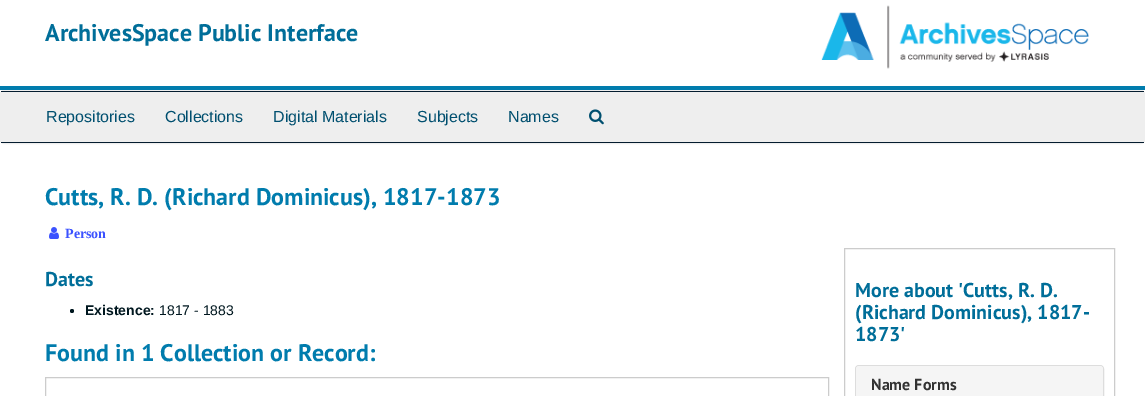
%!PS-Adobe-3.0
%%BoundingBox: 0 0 1145 396
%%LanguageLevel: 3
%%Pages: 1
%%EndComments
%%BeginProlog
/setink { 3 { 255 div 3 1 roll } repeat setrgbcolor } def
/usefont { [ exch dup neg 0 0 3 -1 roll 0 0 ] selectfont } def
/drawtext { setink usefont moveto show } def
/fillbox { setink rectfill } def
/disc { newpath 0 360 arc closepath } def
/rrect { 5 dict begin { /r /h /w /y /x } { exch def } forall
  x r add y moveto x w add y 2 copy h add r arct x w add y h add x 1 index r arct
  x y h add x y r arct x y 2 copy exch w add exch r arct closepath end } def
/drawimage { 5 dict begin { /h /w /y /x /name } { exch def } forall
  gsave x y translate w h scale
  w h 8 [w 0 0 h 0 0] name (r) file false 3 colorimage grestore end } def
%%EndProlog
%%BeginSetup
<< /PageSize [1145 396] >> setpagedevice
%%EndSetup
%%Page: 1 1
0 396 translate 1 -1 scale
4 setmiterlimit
0 0 1145 396 255 255 255 fillbox
0 86 1145 4 0 124 173 fillbox
(ArchivesSpace Public Interface) 45 41 /PTSans-Bold 24 0 110 153 drawtext
(assets/img1.rgb) 821 5 268 64 drawimage
238 238 238 setink
0.5 90.5 1144 53 3.5 rrect gsave fill grestore
stroke
1 91 1143 1 4 28 47 fillbox
1 142 1143 1 4 28 47 fillbox
(Repositories) 46 122 /LiberationSans-Regular 16 0 79 111 drawtext
(Collections) 165 122 /LiberationSans-Regular 16 0 79 111 drawtext
(Digital Materials) 273 122 /LiberationSans-Regular 16 0 79 111 drawtext
(Subjects) 417 122 /LiberationSans-Regular 16 0 79 111 drawtext
(Names) 508 122 /LiberationSans-Regular 16 0 79 111 drawtext
(assets/img2.rgb) 589 109 15 16 drawimage
(Cutts, R. D. \(Richard Dominicus\), 1817-1873) 45 205 /PTSans-Bold 24 0 124 173 drawtext
(assets/img3.rgb) 49 227 10 12 drawimage
(Person) 65 238 /LiberationSerif-Bold 14 59 82 255 drawtext
(Dates) 45 286 /PTSans-Bold 20 0 110 153 drawtext
0 23 31 setink
72 311 2 disc fill
(Existence:) 85 315 /LiberationSans-Bold 14 0 23 31 drawtext
(1817 - 1883) 159 315 /LiberationSans-Regular 14 0 23 31 drawtext
(Found in 1 Collection or Record:) 45 361 /PTSans-Bold 24 0 124 173 drawtext
204 204 204 setink
45.5 377.5 783 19 rectstroke
844.5 248.5 270 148 rectstroke
(More about 'Cutts, R. D.) 855 297 /PTSans-Bold 20 0 110 153 drawtext
(\(Richard Dominicus\), 1817-) 855 319 /PTSans-Bold 20 0 110 153 drawtext
(1873') 855 341 /PTSans-Bold 20 0 110 153 drawtext
221 221 221 setink
855.5 365.5 248 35 3.5 rrect stroke
245 245 245 setink
859 366 moveto 1100 366 lineto 1101.5 366 1103 367.5 1103 369 curveto 1103 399 lineto 856 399 lineto 856 369 lineto 856 367.5 857.5 366 859 366 curveto closepath fill
(Name Forms) 871 390 /PTSans-Bold 16 51 51 51 drawtext
showpage
%%EOF
